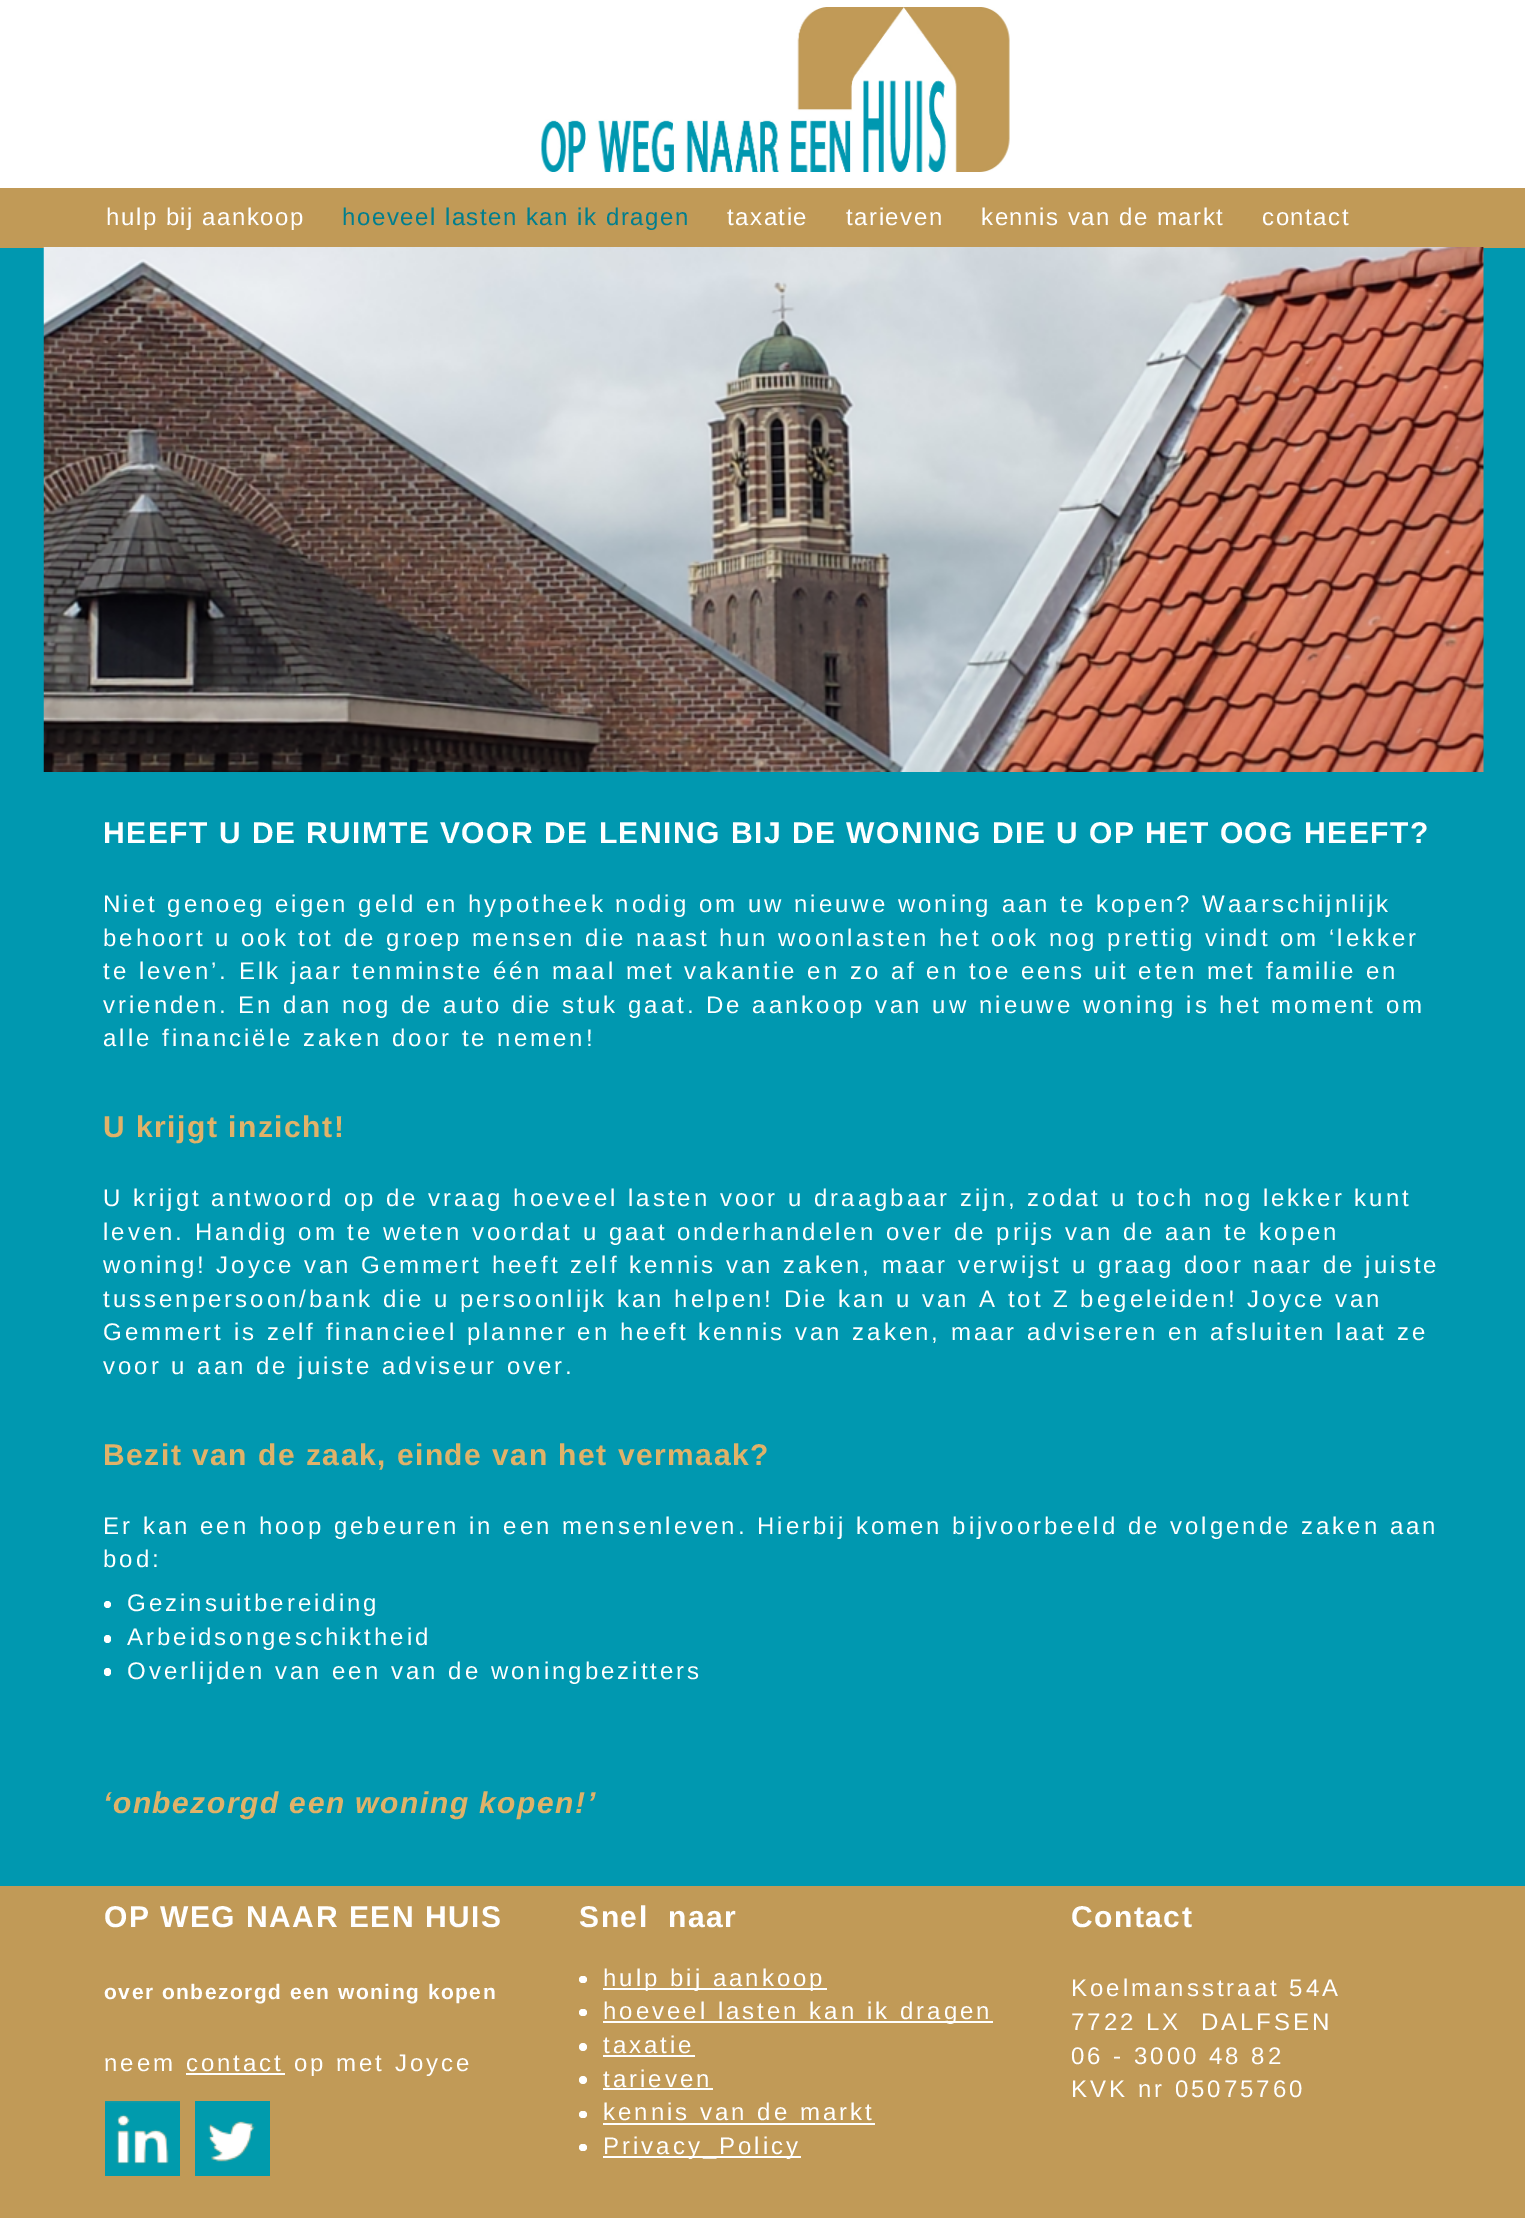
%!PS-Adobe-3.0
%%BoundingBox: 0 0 1525 2218
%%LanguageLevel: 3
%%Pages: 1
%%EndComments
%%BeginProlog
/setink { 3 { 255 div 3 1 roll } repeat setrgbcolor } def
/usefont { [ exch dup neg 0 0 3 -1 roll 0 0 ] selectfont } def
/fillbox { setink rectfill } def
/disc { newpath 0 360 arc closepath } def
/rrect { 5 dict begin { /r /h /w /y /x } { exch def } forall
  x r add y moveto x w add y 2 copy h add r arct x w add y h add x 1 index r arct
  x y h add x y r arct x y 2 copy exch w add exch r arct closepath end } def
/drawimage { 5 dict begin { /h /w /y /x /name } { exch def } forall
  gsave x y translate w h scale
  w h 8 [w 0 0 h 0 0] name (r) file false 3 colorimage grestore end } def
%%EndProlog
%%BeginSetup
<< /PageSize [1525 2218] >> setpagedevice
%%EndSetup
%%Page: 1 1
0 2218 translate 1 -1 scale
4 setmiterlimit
0 0 1525 2218 0 152 176 fillbox
0 0 1525 188 255 255 255 fillbox
(assets/img1.rgb) 541 7 469 165 drawimage
0 188 1525 60 193 154 87 fillbox
/LiberationSans-Regular 24 usefont
255 255 255 setink
106 225 moveto 1.5 0 (hulp bij aankoop) ashow
0 126 142 setink
342 225 moveto 1.5 0 (hoeveel lasten kan ik dragen) ashow
255 255 255 setink
727 225 moveto 1.5 0 (taxatie) ashow
846 225 moveto 1.5 0 (tarieven) ashow
981 225 moveto 1.5 0 (kennis van de markt) ashow
1262 225 moveto 1.5 0 (contact) ashow
(assets/img2.rgb) 43 247 1441 525 drawimage
/LiberationSans-Bold 30 usefont
103 843 moveto 1.5 0 (HEEFT U DE RUIMTE VOOR DE LENING BIJ DE WONING DIE U OP HET OOG HEEFT?) ashow
/LiberationSans-Regular 24 usefont
103 912 moveto 3 0 (Niet genoeg eigen geld en hypotheek nodig om uw nieuwe woning aan te kopen? Waarschijnlijk) ashow
103 946 moveto 3 0 (behoort u ook tot de groep mensen die naast hun woonlasten het ook nog prettig vindt om ‘lekker) ashow
103 979 moveto 3 0 (te leven’. Elk jaar tenminste één maal met vakantie en zo af en toe eens uit eten met familie en) ashow
103 1013 moveto 3 0 (vrienden. En dan nog de auto die stuk gaat. De aankoop van uw nieuwe woning is het moment om) ashow
103 1046 moveto 3 0 (alle financiële zaken door te nemen!) ashow
/LiberationSans-Bold 30 usefont
224 178 105 setink
103 1137 moveto 1.5 0 (U krijgt inzicht!) ashow
/LiberationSans-Regular 24 usefont
255 255 255 setink
103 1206 moveto 3 0 (U krijgt antwoord op de vraag hoeveel lasten voor u draagbaar zijn, zodat u toch nog lekker kunt) ashow
103 1240 moveto 3 0 (leven. Handig om te weten voordat u gaat onderhandelen over de prijs van de aan te kopen) ashow
103 1273 moveto 3 0 (woning! Joyce van Gemmert heeft zelf kennis van zaken, maar verwijst u graag door naar de juiste) ashow
103 1307 moveto 3 0 (tussenpersoon/bank die u persoonlijk kan helpen! Die kan u van A tot Z begeleiden! Joyce van) ashow
103 1340 moveto 3 0 (Gemmert is zelf financieel planner en heeft kennis van zaken, maar adviseren en afsluiten laat ze) ashow
103 1374 moveto 3 0 (voor u aan de juiste adviseur over.) ashow
/LiberationSans-Bold 30 usefont
224 178 105 setink
103 1465 moveto 1.5 0 (Bezit van de zaak, einde van het vermaak?) ashow
/LiberationSans-Regular 24 usefont
255 255 255 setink
103 1534 moveto 3 0 (Er kan een hoop gebeuren in een mensenleven. Hierbij komen bijvoorbeeld de volgende zaken aan) ashow
103 1567 moveto 3 0 (bod:) ashow
107.5 1604.5 3.5 disc fill
127 1611 moveto 3 0 (Gezinsuitbereiding) ashow
104 1635 7 8 3.5 rrect fill
127 1645 moveto 3 0 (Arbeidsongeschiktheid) ashow
104 1668 7 8 3.5 rrect fill
127 1679 moveto 3 0 (Overlijden van een van de woningbezitters) ashow
/LiberationSans-BoldItalic 30 usefont
224 178 105 setink
103 1813 moveto 1.5 0 (‘onbezorgd een woning kopen!’) ashow
0 1886 1525 332 193 154 87 fillbox
/LiberationSans-Bold 30 usefont
255 255 255 setink
104 1927 moveto 1.5 0 (OP WEG NAAR EEN HUIS) ashow
/LiberationSans-Bold 21 usefont
104 1999 moveto 1.5 0 (over onbezorgd een woning kopen) ashow
/LiberationSans-Regular 24 usefont
104 2071 moveto 3 0 (neem contact op met Joyce) ashow
186 2073 99 2 255 255 255 fillbox
(assets/img3.rgb) 105 2101 75 75 drawimage
(assets/img4.rgb) 195 2101 75 75 drawimage
/LiberationSans-Bold 30 usefont
579 1927 moveto 1.5 0 (Snel  naar) ashow
579 1976 8 7 3.5 rrect fill
603 1988 224 2 255 255 255 fillbox
/LiberationSans-Regular 24 usefont
603 1986 moveto 3 0 (hulp bij aankoop) ashow
579 2009 8 7 3.5 rrect fill
603 2021 390 2 255 255 255 fillbox
603 2019 moveto 3 0 (hoeveel lasten kan ik dragen) ashow
583 2047 4 disc fill
603 2053 moveto 3 0 (taxatie) ashow
603 2055 92 2 255 255 255 fillbox
583 2080 4 disc fill
603 2087 moveto 3 0 (tarieven) ashow
603 2088 110 2 255 255 255 fillbox
579 2111 8 7 3.5 rrect fill
603 2120 moveto 3 0 (kennis van de markt) ashow
603 2123 272 2 255 255 255 fillbox
579 2144 8 7 3.5 rrect fill
603 2156 198 2 255 255 255 fillbox
603 2154 moveto 3 0 (Privacy_Policy) ashow
/LiberationSans-Bold 30 usefont
1071 1927 moveto 1.5 0 (Contact) ashow
/LiberationSans-Regular 24 usefont
1071 1996 moveto 3 0 (Koelmansstraat 54A) ashow
1071 2030 moveto 3 0 (7722 LX  DALFSEN) ashow
1071 2064 moveto 3 0 (06 - 3000 48 82) ashow
1071 2097 moveto 3 0 (KVK nr 05075760) ashow
showpage
%%EOF
